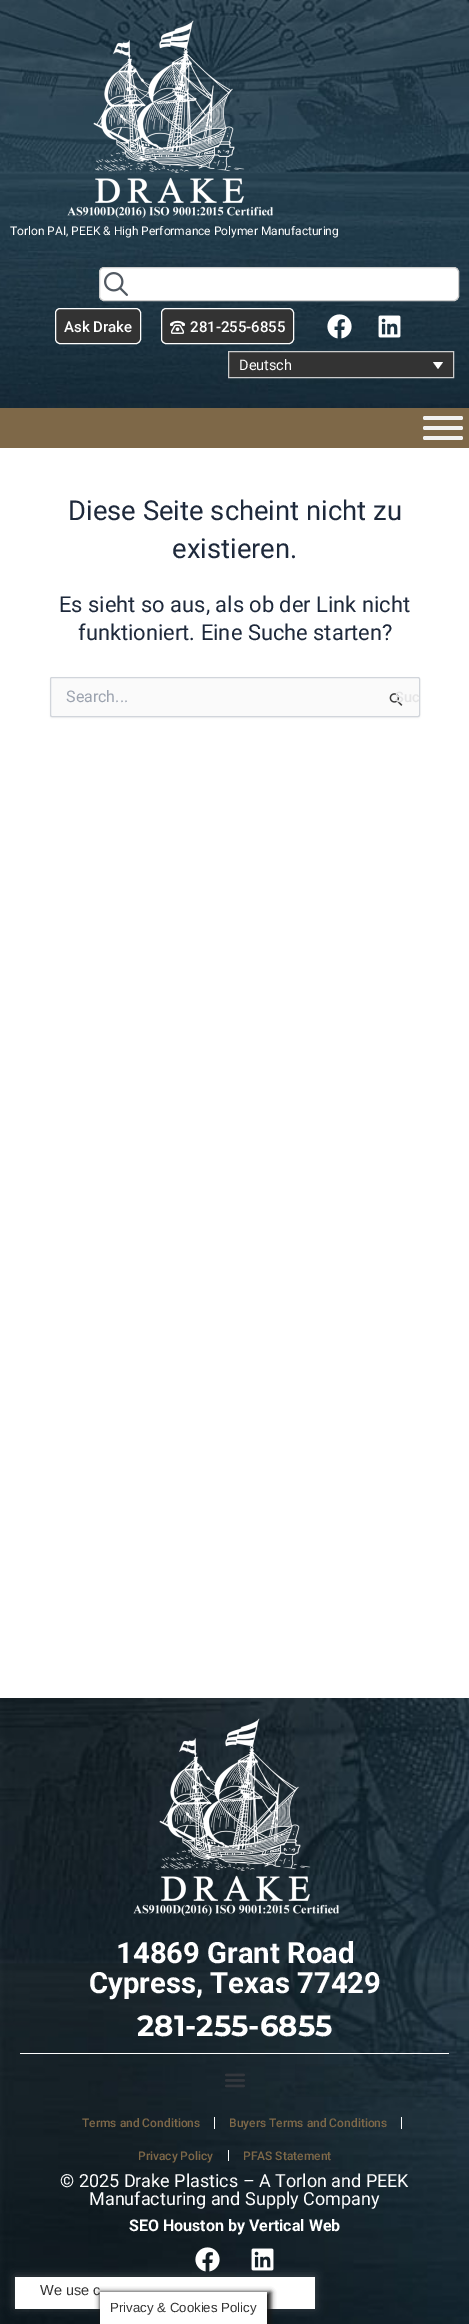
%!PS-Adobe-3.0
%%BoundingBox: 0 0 469 2324
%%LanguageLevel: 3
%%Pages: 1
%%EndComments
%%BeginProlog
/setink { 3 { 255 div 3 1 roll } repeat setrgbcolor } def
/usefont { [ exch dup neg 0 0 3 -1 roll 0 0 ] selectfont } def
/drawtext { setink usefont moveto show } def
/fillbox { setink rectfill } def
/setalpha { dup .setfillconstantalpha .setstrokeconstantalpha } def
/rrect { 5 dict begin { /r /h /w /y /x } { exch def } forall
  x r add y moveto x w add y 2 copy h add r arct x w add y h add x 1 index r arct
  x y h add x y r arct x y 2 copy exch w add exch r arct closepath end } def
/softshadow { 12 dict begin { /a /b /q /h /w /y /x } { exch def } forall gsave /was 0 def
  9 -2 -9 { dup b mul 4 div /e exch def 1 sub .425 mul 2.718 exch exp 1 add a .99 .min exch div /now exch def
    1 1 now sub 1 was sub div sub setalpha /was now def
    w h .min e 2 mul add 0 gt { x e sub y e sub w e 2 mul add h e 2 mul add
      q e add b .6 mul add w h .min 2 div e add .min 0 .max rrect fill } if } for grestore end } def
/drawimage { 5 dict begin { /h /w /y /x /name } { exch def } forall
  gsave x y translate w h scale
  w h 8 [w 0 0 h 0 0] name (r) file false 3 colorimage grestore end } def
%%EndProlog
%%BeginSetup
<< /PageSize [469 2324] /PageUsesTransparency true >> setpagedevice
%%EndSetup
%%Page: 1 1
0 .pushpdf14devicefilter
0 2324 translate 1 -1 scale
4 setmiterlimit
0 0 469 2324 255 255 255 fillbox
(assets/img1.rgb) 0 0 469 408 drawimage
(assets/img2.rgb) 67 20 206 198 drawimage
(Torlon PAI, PEEK & High Performance Polymer Manufacturing) 10 235 /Roboto-Regular 12 255 255 255 drawtext
99.5 267.5 359 33 4.5 rrect gsave fill grestore
205 205 205 setink
stroke
(assets/img3.rgb) 104 272 24 24 drawimage
51 51 51 setink
55.5 308.5 85 35 4.5 rrect gsave fill grestore
255 255 255 setink
stroke
(Ask Drake) 64 332 /Roboto-Medium 15 255 255 255 drawtext
51 51 51 setink
161.5 308.5 132 35 4.5 rrect gsave fill grestore
255 255 255 setink
stroke
(assets/img4.rgb) 170 320 15 14 drawimage
(281-255-6855) 190 332 /Roboto-Medium 15 255 255 255 drawtext
(assets/img5.rgb) 327 314 25 25 drawimage
(assets/img6.rgb) 378 315 23 23 drawimage
51 51 51 setink
228.5 351.5 moveto 453.5 351.5 lineto 453.5 377.5 lineto 228.5 377.5 lineto closepath gsave fill grestore
205 205 205 setink
stroke
(Deutsch) 239 370 /Roboto-Regular 14.5 255 255 255 drawtext
433 362 moveto 443 362 lineto 438 369 lineto closepath fill
0 408 469 40 126 104 72 fillbox
241 241 241 setink
423 416 40 4 2 rrect fill
423 426 40 4 2 rrect fill
423 436 40 4 2 rrect fill
(Diese Seite scheint nicht zu) 68 520 /Roboto-Regular 27.4 30 41 59 drawtext
(existieren.) 172 558 /Roboto-Regular 27.4 30 41 59 drawtext
(Es sieht so aus, als ob der Link nicht) 59 612 /Roboto-Regular 21.9 30 41 59 drawtext
(funktioniert. Eine Suche starten?) 78 640 /Roboto-Regular 21.9 30 41 59 drawtext
0 0 0 setink
50 678 370 40 2 1 0.05 softshadow
250 250 250 setink
50.5 677.5 369 39 1.5 rrect gsave fill grestore
209 213 219 setink
stroke
(Search...) 66 702 /Roboto-Regular 16 156 163 175 drawtext
(assets/img7.rgb) 389 693 14 13 drawimage
(Suc) 395 702 /Roboto-Medium 14.5 229 229 230 drawtext
(assets/img8.rgb) 0 1698 469 626 drawimage
(assets/img9.rgb) 133 1718 206 198 drawimage
(14869 Grant Road) 116 1963 /Roboto-Bold 29.25 255 255 255 drawtext
(Cypress, Texas 77429) 89 1993 /Roboto-Bold 29.25 255 255 255 drawtext
(281-255-6855) 137 2036 /Montserrat-Bold 29.25 255 255 255 drawtext
20 2053 429 1 255 255 255 fillbox
0.05 setalpha
295 2064 154 33 0 0 0 fillbox
1 setalpha
(assets/img10.rgb) 225 2073 20 15 drawimage
(Terms and Conditions) 82 2127 /Roboto-Medium 12 126 104 72 drawtext
214 2117 1 12 255 255 255 fillbox
(Buyers Terms and Conditions) 229 2127 /Roboto-Medium 12 126 104 72 drawtext
401 2117 1 12 255 255 255 fillbox
(Privacy Policy) 138 2160 /Roboto-Medium 12 126 104 72 drawtext
228 2150 1 11 255 255 255 fillbox
(PFAS Statement) 243 2160 /Roboto-Medium 12 126 104 72 drawtext
(© 2025 Drake Plastics – A Torlon and PEEK) 60 2187 /Roboto-Regular 18 255 255 255 drawtext
(Manufacturing and Supply Company) 89 2205 /Roboto-Regular 18 255 255 255 drawtext
(SEO Houston by Vertical Web) 129 2231 /Roboto-Bold 16 255 255 255 drawtext
(assets/img11.rgb) 195 2247 25 25 drawimage
(assets/img12.rgb) 251 2248 23 23 drawimage
172 171 171 setink
15 2276 300 32 0 5 0.3 softshadow
15 2277 300 32 255 255 255 fillbox
(We use c) 40 2295 /LiberationSans-Regular 14.5 51 51 51 drawtext
22 22 22 setink
100 2292 171 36 0 2.5 1 softshadow
100 2292 167 32 255 255 255 fillbox
(Privacy & Cookies Policy) 110 2312 /LiberationSans-Regular 13.25 51 51 51 drawtext
.poppdf14devicefilter showpage
%%EOF
